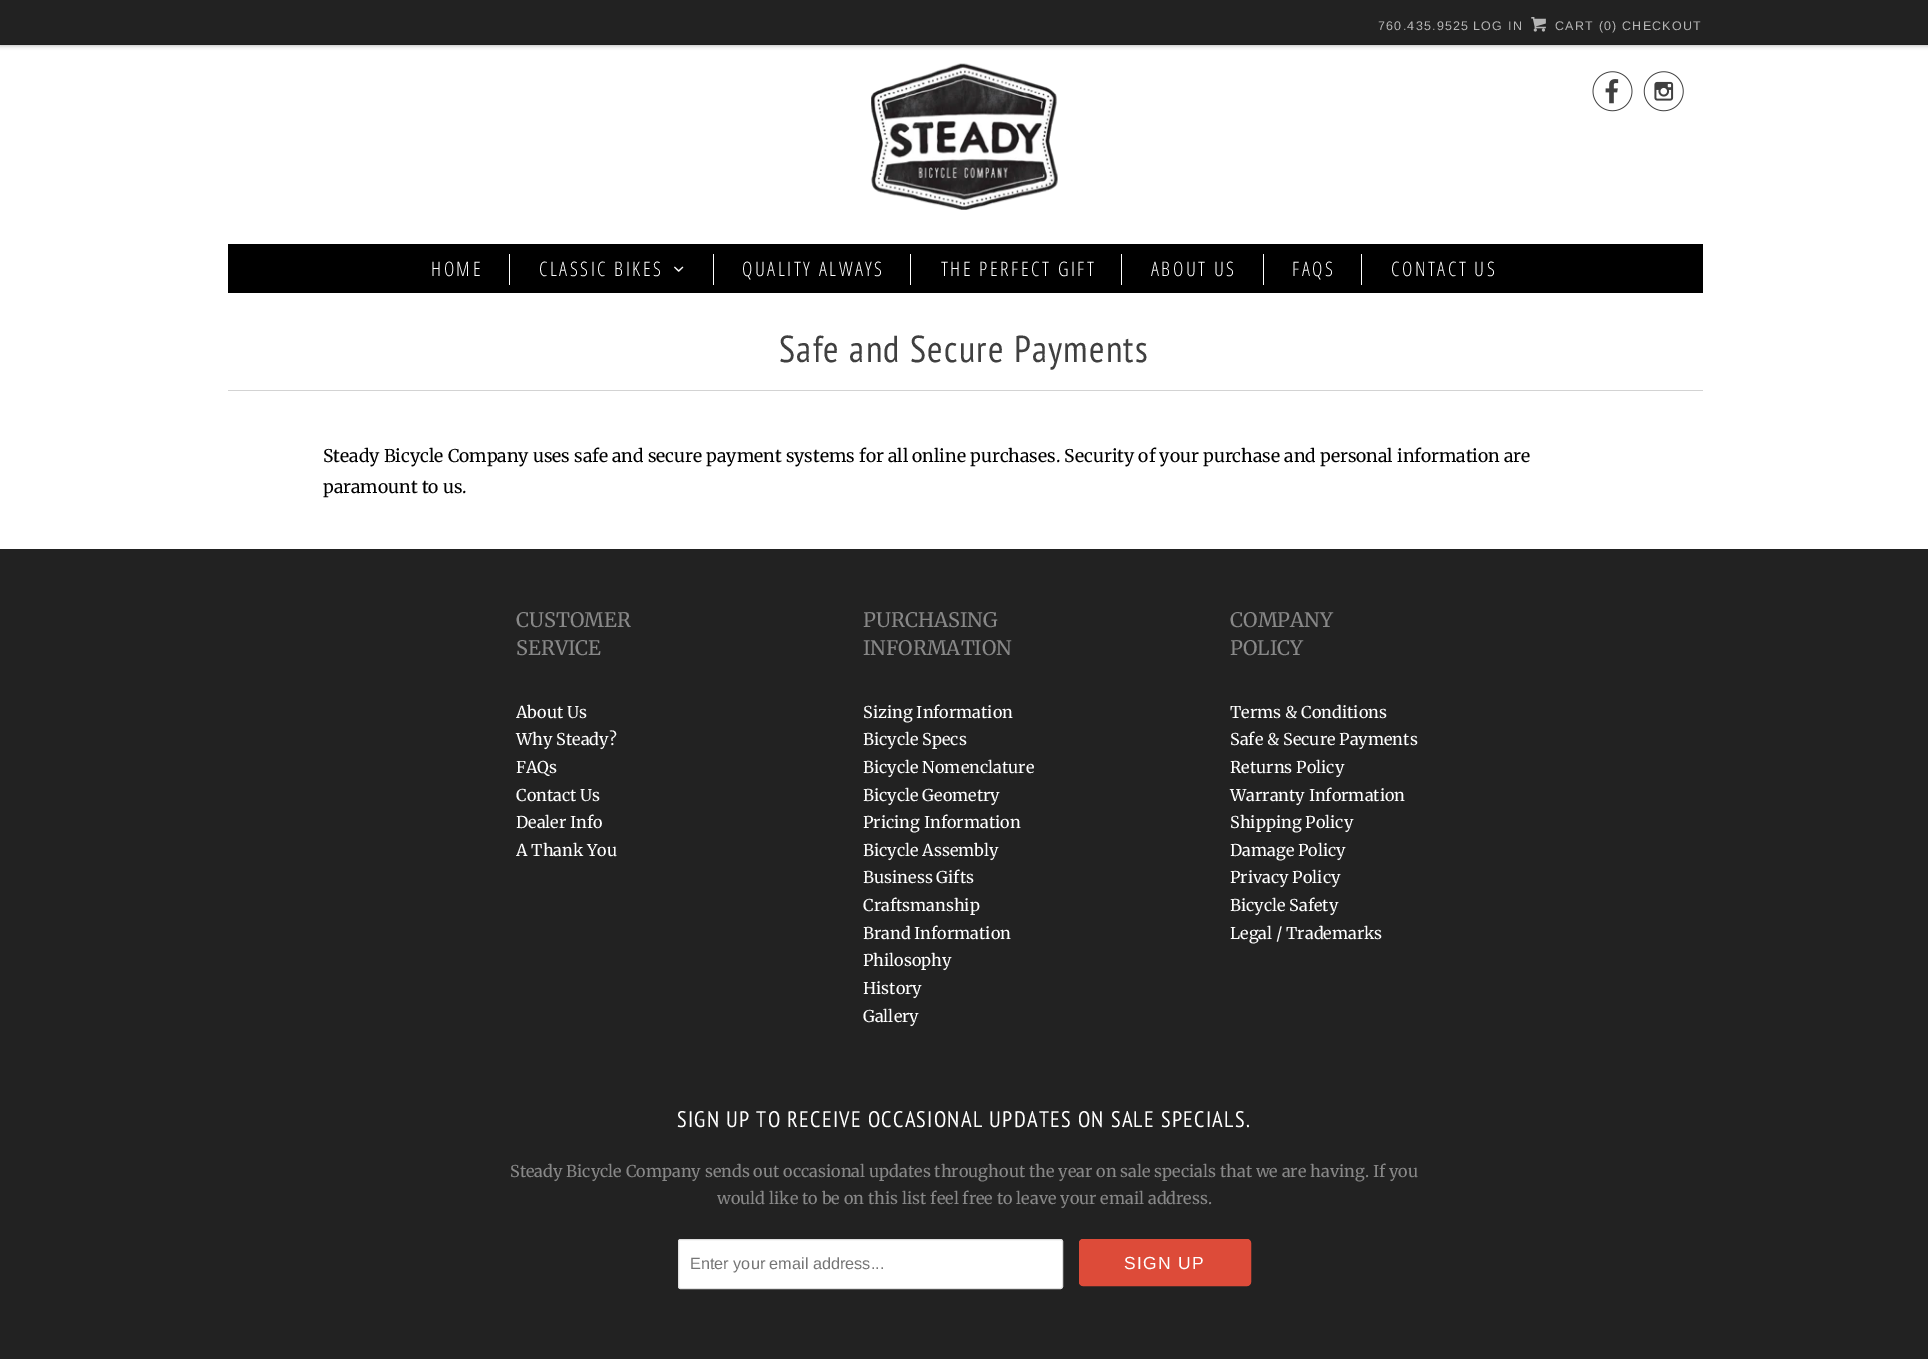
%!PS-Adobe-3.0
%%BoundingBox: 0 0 1928 1359
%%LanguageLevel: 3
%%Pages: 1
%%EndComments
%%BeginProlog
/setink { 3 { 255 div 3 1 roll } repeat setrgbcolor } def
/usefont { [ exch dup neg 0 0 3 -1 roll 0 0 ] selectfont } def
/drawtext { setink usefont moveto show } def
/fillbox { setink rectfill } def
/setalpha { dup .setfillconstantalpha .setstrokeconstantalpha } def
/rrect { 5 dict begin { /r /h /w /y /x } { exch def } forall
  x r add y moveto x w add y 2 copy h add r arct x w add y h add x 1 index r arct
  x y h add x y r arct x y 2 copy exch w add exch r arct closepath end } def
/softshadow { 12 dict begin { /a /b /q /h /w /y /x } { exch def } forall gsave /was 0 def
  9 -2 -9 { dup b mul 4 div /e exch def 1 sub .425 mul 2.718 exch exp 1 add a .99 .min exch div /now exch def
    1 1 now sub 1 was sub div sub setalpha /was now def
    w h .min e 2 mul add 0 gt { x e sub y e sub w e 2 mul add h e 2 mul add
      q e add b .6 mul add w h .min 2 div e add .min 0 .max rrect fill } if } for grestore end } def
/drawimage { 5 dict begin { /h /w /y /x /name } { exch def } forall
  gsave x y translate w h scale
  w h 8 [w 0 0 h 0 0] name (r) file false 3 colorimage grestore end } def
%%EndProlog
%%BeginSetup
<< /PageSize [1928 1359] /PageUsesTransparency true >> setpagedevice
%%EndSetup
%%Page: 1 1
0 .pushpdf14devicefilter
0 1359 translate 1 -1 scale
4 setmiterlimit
0 0 1928 1359 255 255 255 fillbox
0 0 0 setink
0 1 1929 45 0 2 0.25 softshadow
0 0 1928 44 34 34 34 fillbox
0 44 1928 1 31 31 31 fillbox
/LiberationSans-Regular 12.5 usefont
182 182 182 setink
1378 30 moveto 1.25 0 (760.435.9525) ashow
1473 30 moveto 1.25 0 (LOG IN) ashow
(assets/img1.rgb) 1531 17 15 15 drawimage
1555 30 moveto 1.25 0 (CART \(0\)) ashow
1622 30 moveto 1.25 0 (CHECKOUT) ashow
(assets/img2.rgb) 871 63 187 147 drawimage
(assets/img3.rgb) 1592 71 41 41 drawimage
(assets/img4.rgb) 1643 71 41 41 drawimage
228 244 1475 49 0 0 0 fillbox
509 254 1 31 255 255 255 fillbox
/OpenSansCondensed-Light 20 usefont
431 276 moveto 2.5 0 (HOME) ashow
713 254 1 31 255 255 255 fillbox
539 276 moveto 2.5 0 (CLASSIC BIKES) ashow
(assets/img5.rgb) 674 266 10 6 drawimage
910 254 1 31 255 255 255 fillbox
742 276 moveto 2.5 0 (QUALITY ALWAYS) ashow
1121 254 1 31 255 255 255 fillbox
941 276 moveto 2.5 0 (THE PERFECT GIFT) ashow
1263 254 1 31 255 255 255 fillbox
1151 276 moveto 2.5 0 (ABOUT US) ashow
1361 254 1 31 255 255 255 fillbox
1292 276 moveto 2.5 0 (FAQS) ashow
1391 276 moveto 2.5 0 (CONTACT US) ashow
228 390 1475 1 211 211 211 fillbox
/PTSansNarrow-Regular 37.5 usefont
64 64 64 setink
779 362 moveto 1.25 0 (Safe and Secure Payments) ashow
(Steady Bicycle Company uses safe and secure payment systems for all online purchases. Security of your purchase and personal information are) 323 462 /Merriweather-Regular 17.5 0 0 0 drawtext
(paramount to us.) 323 493 /Merriweather-Regular 17.5 0 0 0 drawtext
0 549 1928 810 34 34 34 fillbox
(CUSTOMER) 516 627 /Merriweather-Regular 20 136 136 136 drawtext
(SERVICE) 516 655 /Merriweather-Regular 20 136 136 136 drawtext
(About Us) 516 718 /Merriweather-Regular 16.25 255 255 255 drawtext
(Why Steady?) 516 745 /Merriweather-Regular 16.25 255 255 255 drawtext
(FAQs) 516 773 /Merriweather-Regular 16.25 255 255 255 drawtext
(Contact Us) 516 801 /Merriweather-Regular 16.25 255 255 255 drawtext
(Dealer Info) 516 828 /Merriweather-Regular 16.25 255 255 255 drawtext
(A Thank You) 516 856 /Merriweather-Regular 16.25 255 255 255 drawtext
(PURCHASING) 863 627 /Merriweather-Regular 20 136 136 136 drawtext
(INFORMATION) 863 655 /Merriweather-Regular 20 136 136 136 drawtext
(Sizing Information) 863 718 /Merriweather-Regular 16.25 255 255 255 drawtext
(Bicycle Specs) 863 745 /Merriweather-Regular 16.25 255 255 255 drawtext
(Bicycle Nomenclature) 863 773 /Merriweather-Regular 16.25 255 255 255 drawtext
(Bicycle Geometry) 863 801 /Merriweather-Regular 16.25 255 255 255 drawtext
(Pricing Information) 863 828 /Merriweather-Regular 16.25 255 255 255 drawtext
(Bicycle Assembly) 863 856 /Merriweather-Regular 16.25 255 255 255 drawtext
(Business Gifts) 863 883 /Merriweather-Regular 16.25 255 255 255 drawtext
(Craftsmanship) 863 911 /Merriweather-Regular 16.25 255 255 255 drawtext
(Brand Information) 863 939 /Merriweather-Regular 16.25 255 255 255 drawtext
(Philosophy) 863 966 /Merriweather-Regular 16.25 255 255 255 drawtext
(History) 863 994 /Merriweather-Regular 16.25 255 255 255 drawtext
(Gallery) 863 1022 /Merriweather-Regular 16.25 255 255 255 drawtext
(COMPANY) 1230 627 /Merriweather-Regular 20 136 136 136 drawtext
(POLICY) 1230 655 /Merriweather-Regular 20 136 136 136 drawtext
(Terms & Conditions) 1230 718 /Merriweather-Regular 16.25 255 255 255 drawtext
(Safe & Secure Payments) 1230 745 /Merriweather-Regular 16.25 255 255 255 drawtext
(Returns Policy) 1230 773 /Merriweather-Regular 16.25 255 255 255 drawtext
(Warranty Information) 1230 801 /Merriweather-Regular 16.25 255 255 255 drawtext
(Shipping Policy) 1230 828 /Merriweather-Regular 16.25 255 255 255 drawtext
(Damage Policy) 1230 856 /Merriweather-Regular 16.25 255 255 255 drawtext
(Privacy Policy) 1230 883 /Merriweather-Regular 16.25 255 255 255 drawtext
(Bicycle Safety) 1230 911 /Merriweather-Regular 16.25 255 255 255 drawtext
(Legal / Trademarks) 1230 939 /Merriweather-Regular 16.25 255 255 255 drawtext
/PTSansNarrow-Regular 22.5 usefont
677 1127 moveto 1.25 0 (SIGN UP TO RECEIVE OCCASIONAL UPDATES ON SALE SPECIALS.) ashow
(Steady Bicycle Company sends out occasional updates throughout the year on sale specials that we are having. If you) 510 1177 /Merriweather-Regular 16.25 136 136 136 drawtext
(would like to be on this list feel free to leave your email address.) 717 1204 /Merriweather-Regular 16.25 136 136 136 drawtext
255 255 255 setink
678.5 1239.5 384 49 2 rrect gsave fill grestore
223 223 223 setink
stroke
(Enter your email address...) 690 1269 /LiberationSans-Regular 16.25 117 117 117 drawtext
221 75 57 setink
1079.5 1239.5 171 46 3.5 rrect gsave fill grestore
stroke
/LiberationSans-Regular 17.5 usefont
255 255 255 setink
1124 1269 moveto 1.25 0 (SIGN UP) ashow
.poppdf14devicefilter showpage
%%EOF
